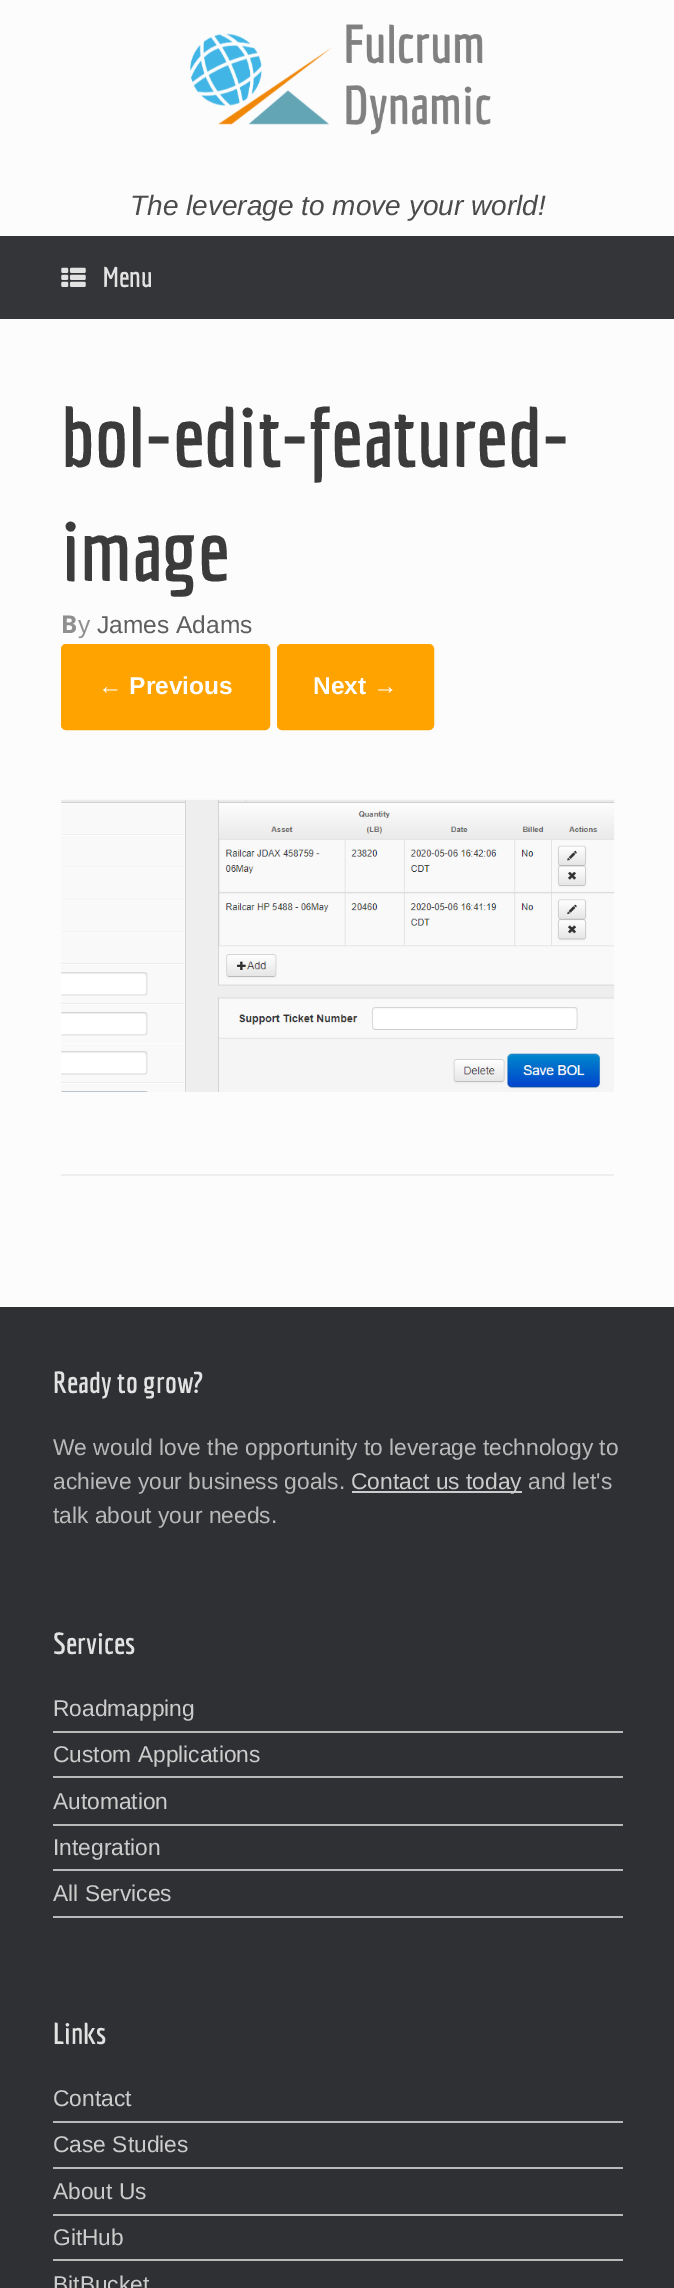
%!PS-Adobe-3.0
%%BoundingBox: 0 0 674 2288
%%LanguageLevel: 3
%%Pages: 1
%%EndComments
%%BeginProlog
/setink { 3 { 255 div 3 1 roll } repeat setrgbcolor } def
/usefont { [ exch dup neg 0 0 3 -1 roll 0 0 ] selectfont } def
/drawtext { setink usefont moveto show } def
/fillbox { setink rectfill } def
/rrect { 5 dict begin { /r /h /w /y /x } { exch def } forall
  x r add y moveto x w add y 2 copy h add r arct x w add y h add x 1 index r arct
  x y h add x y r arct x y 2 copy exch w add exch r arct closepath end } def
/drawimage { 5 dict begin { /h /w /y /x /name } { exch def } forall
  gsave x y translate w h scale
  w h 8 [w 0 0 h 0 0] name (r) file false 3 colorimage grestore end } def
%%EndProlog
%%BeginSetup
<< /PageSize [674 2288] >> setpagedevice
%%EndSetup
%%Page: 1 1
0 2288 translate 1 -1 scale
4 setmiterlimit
0 0 674 2288 47 48 51 fillbox
0 0 674 236 252 252 252 fillbox
(assets/img1.rgb) 190 24 301 111 drawimage
(The leverage to move your world!) 130 215 /LiberationSans-Italic 28 75 75 75 drawtext
0 236 674 83 52 53 56 fillbox
(assets/img2.rgb) 61 267 25 20 drawimage
(Menu) 103 287 /Economica-Bold 28 226 226 226 drawtext
0 319 674 988 252 252 252 fillbox
61 1174 553 2 238 238 238 fillbox
(bol-edit-featured-) 61 467 /Economica-Bold 84 59 59 59 drawtext
(image) 61 581 /Economica-Bold 84 59 59 59 drawtext
(B) 61 633 /NotoSans-Bold 24.5 143 143 143 drawtext
(y) 78 633 /LiberationSans-Regular 24.5 143 143 143 drawtext
(James Adams) 97 633 /LiberationSans-Regular 24.5 94 94 94 drawtext
255 163 0 setink
62 645 207 84 4 rrect gsave fill grestore
2 setlinewidth
stroke
(← Previous) 98 694 /LiberationSans-Bold 24.5 255 255 255 drawtext
255 163 0 setink
278 645 155 84 4 rrect gsave fill grestore
stroke
(Next →) 313 694 /LiberationSans-Bold 24.5 255 255 255 drawtext
(assets/img3.rgb) 61 799 554 293 drawimage
(Ready to grow?) 53 1393 /Economica-Bold 29.75 226 226 226 drawtext
(We would love the opportunity to leverage technology to) 53 1455 /LiberationSans-Regular 22.75 185 185 185 drawtext
(achieve your business goals.) 53 1489 /LiberationSans-Regular 22.75 185 185 185 drawtext
352 1491 170 2 204 204 204 fillbox
(Contact us today) 351 1489 /LiberationSans-Regular 22.75 204 204 204 drawtext
(and let's) 528 1489 /LiberationSans-Regular 22.75 185 185 185 drawtext
(talk about your needs.) 53 1523 /LiberationSans-Regular 22.75 185 185 185 drawtext
(Services) 53 1654 /Economica-Bold 29.75 226 226 226 drawtext
53 1731 570 2 185 185 185 fillbox
(Roadmapping) 53 1716 /LiberationSans-Regular 22.75 204 204 204 drawtext
53 1776 570 2 185 185 185 fillbox
(Custom Applications) 53 1762 /LiberationSans-Regular 22.75 204 204 204 drawtext
53 1824 570 2 185 185 185 fillbox
(Automation) 53 1809 /LiberationSans-Regular 22.75 204 204 204 drawtext
53 1869 570 2 185 185 185 fillbox
(Integration) 53 1855 /LiberationSans-Regular 22.75 204 204 204 drawtext
53 1916 570 2 185 185 185 fillbox
(All Services) 53 1901 /LiberationSans-Regular 22.75 204 204 204 drawtext
(Links) 53 2044 /Economica-Bold 29.75 226 226 226 drawtext
53 2121 570 2 185 185 185 fillbox
(Contact) 53 2106 /LiberationSans-Regular 22.75 204 204 204 drawtext
53 2167 570 2 185 185 185 fillbox
(Case Studies) 53 2152 /LiberationSans-Regular 22.75 204 204 204 drawtext
53 2214 570 2 185 185 185 fillbox
(About Us) 53 2199 /LiberationSans-Regular 22.75 204 204 204 drawtext
53 2259 570 2 185 185 185 fillbox
(GitHub) 53 2245 /LiberationSans-Regular 22.75 204 204 204 drawtext
(BitBucket) 53 2292 /LiberationSans-Regular 22.75 204 204 204 drawtext
showpage
%%EOF
